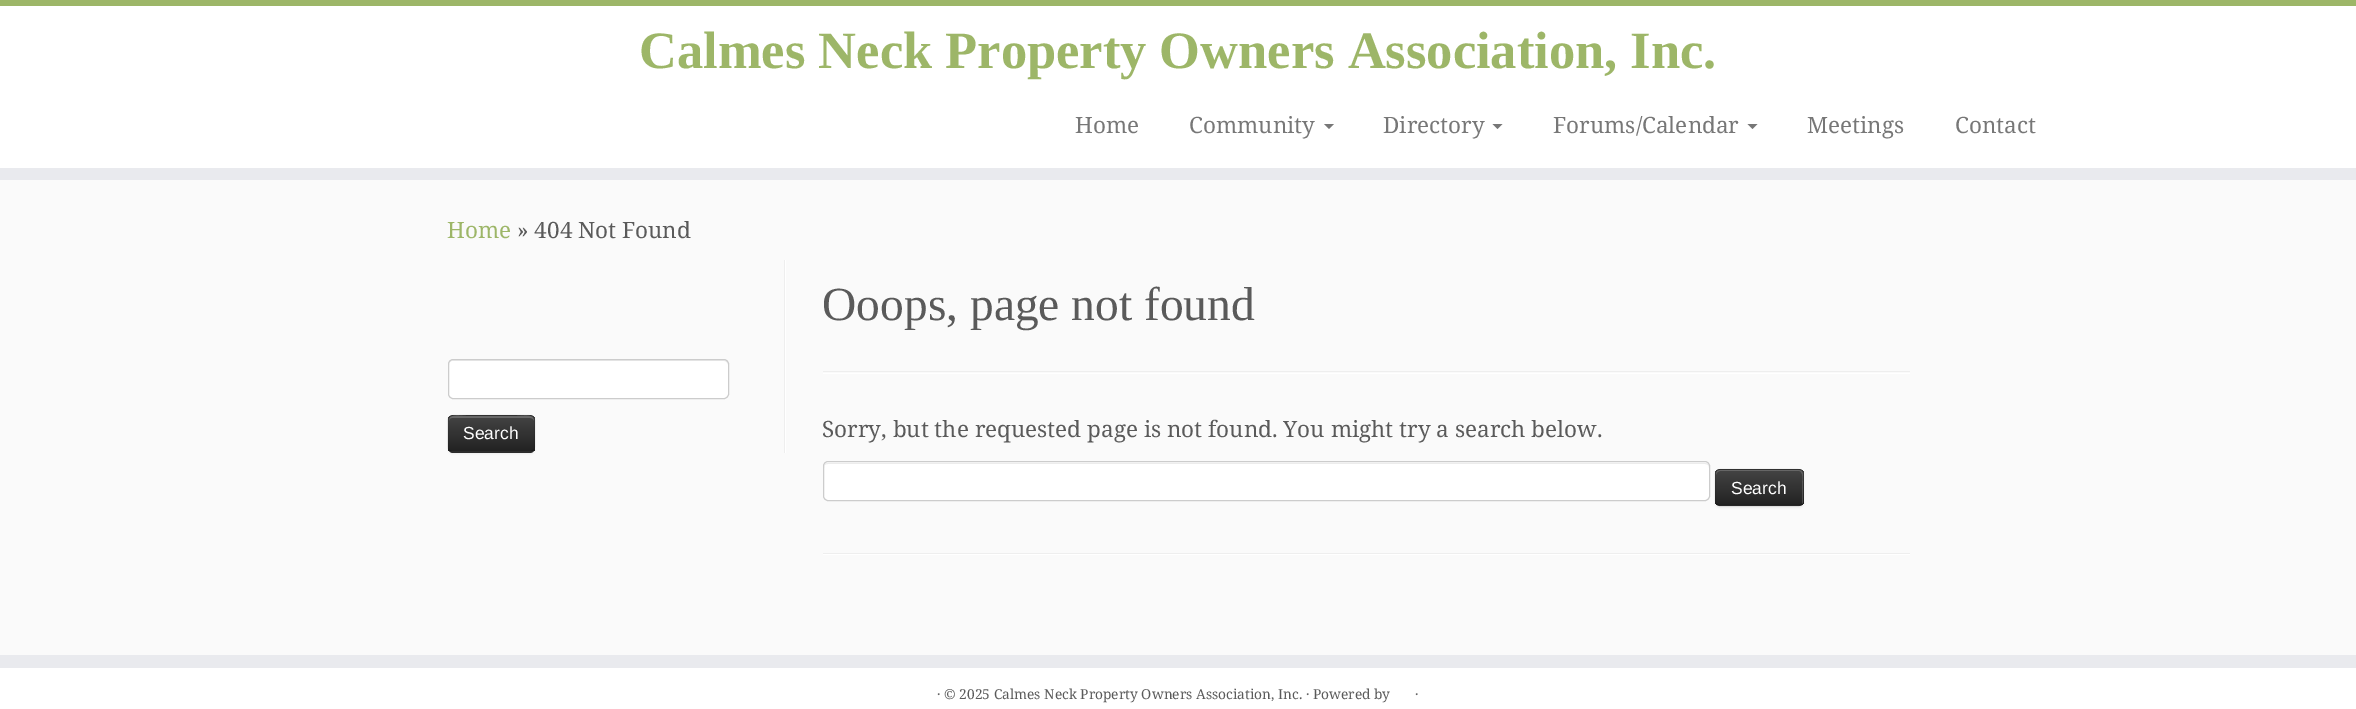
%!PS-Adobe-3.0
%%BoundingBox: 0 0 2356 709
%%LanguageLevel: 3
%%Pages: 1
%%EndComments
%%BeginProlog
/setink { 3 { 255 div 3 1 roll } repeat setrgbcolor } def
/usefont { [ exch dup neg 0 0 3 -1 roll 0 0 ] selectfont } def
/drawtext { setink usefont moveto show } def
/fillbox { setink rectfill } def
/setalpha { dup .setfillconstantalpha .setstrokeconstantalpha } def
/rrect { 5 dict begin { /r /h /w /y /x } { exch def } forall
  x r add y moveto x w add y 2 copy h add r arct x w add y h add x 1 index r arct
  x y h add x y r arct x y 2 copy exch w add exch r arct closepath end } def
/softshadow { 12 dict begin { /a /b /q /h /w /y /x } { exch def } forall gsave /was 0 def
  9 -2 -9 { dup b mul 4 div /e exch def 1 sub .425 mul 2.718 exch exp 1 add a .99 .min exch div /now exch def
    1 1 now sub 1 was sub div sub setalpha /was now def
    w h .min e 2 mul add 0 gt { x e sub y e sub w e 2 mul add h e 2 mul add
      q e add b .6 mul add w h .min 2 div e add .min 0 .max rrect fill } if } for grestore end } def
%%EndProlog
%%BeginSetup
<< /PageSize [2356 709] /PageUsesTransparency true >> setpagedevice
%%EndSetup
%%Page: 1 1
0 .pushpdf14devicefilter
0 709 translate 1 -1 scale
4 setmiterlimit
0 0 2356 709 250 250 250 fillbox
0 6 2356 162 255 255 255 fillbox
0 0 2356 6 157 182 104 fillbox
0 168 2356 12 233 234 238 fillbox
(Calmes Neck Property Owners Association, Inc.) 639 68 /LiberationSerif-Bold 52.5 157 182 104 drawtext
(Home) 1075 133 /NotoSerif-Regular 22.5 119 119 119 drawtext
(Community) 1189 133 /NotoSerif-Regular 22.5 119 119 119 drawtext
1324 124 moveto 1334 124 lineto 1329 129 lineto closepath fill
(Directory) 1383 133 /NotoSerif-Regular 22.5 119 119 119 drawtext
1492.5 124 moveto 1502.5 124 lineto 1497.5 129 lineto closepath fill
(Forums/Calendar) 1553 133 /NotoSerif-Regular 22.5 119 119 119 drawtext
1747.5 124 moveto 1757.5 124 lineto 1752.5 129 lineto closepath fill
(Meetings) 1807 133 /NotoSerif-Regular 22.5 119 119 119 drawtext
(Contact) 1955 133 /NotoSerif-Regular 22.5 119 119 119 drawtext
(Home) 447 238 /NotoSerif-Regular 22.5 157 182 104 drawtext
(» 404 Not Found) 517 238 /NotoSerif-Regular 22.5 90 90 90 drawtext
784 260 1 193 238 238 238 fillbox
255 255 255 setink
448 359 281 40 5 rrect fill
236 236 236 setink
452 361 moveto 724 361 lineto 726 361 728 363 728 365 curveto 728 362 727 360 724 360 curveto 453 360 lineto 450 360 449 362 449 365 curveto 449 363 450 361 452 361 curveto closepath fill
204 204 204 setink
448.5 359.5 280 39 4.5 rrect stroke
0 0 0 setink
448 416 87 38 5 1 0.05 softshadow
54 54 54 setink
448 415 87 38 5 rrect fill
gsave
448 415 87 38 5 rrect clip newpath
gsave 448 416 moveto 535 416 lineto 535 451 lineto 448 451 lineto closepath clip newpath
<< /ShadingType 2 /ColorSpace /DeviceRGB /Coords [491 416 491 451] /Extend [true true] /Function << /FunctionType 2 /Domain [0 1] /C0 [0.267 0.267 0.267] /C1 [0.133 0.133 0.133] /N 1 >> >> shfill grestore
grestore
0.2 setalpha
255 255 255 setink
452 418 moveto 530 418 lineto 532 418 534 419 534 421 curveto 534 413 522 416 517 416 curveto 466 416 lineto 461 416 449 413 449 421 curveto 449 419 450 418 452 418 curveto closepath fill
0.25 setalpha
0 0 0 setink
1.2 setlinewidth
533 450.5 moveto 530.5 452 lineto 452 452 lineto 449.5 450.5 lineto stroke
0.1 setalpha
449.5 450.5 moveto 447.5 448.5 448 445.5 448 443 curveto 448 434 lineto 448 413.5 445 415.5 465.5 415.5 curveto 517 415.5 lineto 537.5 415.5 534.5 413.5 534.5 434 curveto 534.5 443 lineto 534.5 445.5 535 448.5 533 450.5 curveto stroke
1 setalpha
(Search) 463 439 /LiberationSans-Regular 17.5 255 255 255 drawtext
785 260 1 193 255 255 255 fillbox
(Ooops, page not found) 822 320 /LiberationSerif-Regular 47.5 90 90 90 drawtext
823 371 1087 1 238 238 238 fillbox
823 373 1087 1 255 255 255 fillbox
(Sorry, but the requested page is not found. You might try a search below.) 822 437 /NotoSerif-Regular 22.5 90 90 90 drawtext
255 255 255 setink
823 461 887 40 5 rrect fill
236 236 236 setink
828 464 moveto 1705 464 lineto 1707 464 1709 465 1709 468 curveto 1709 465 1708 463 1705 463 curveto 828 463 lineto 825 463 824 465 824 468 curveto 824 465 825 464 828 464 curveto closepath fill
204 204 204 setink
1 setlinewidth
823.5 461.5 886 39 4.5 rrect stroke
0 0 0 setink
1715 470 89 38 5 1 0.05 softshadow
54 54 54 setink
1715 469 89 37 5 rrect fill
gsave
1715 469 89 37 5 rrect clip newpath
gsave 1715 470 moveto 1804 470 lineto 1804 505 lineto 1715 505 lineto closepath clip newpath
<< /ShadingType 2 /ColorSpace /DeviceRGB /Coords [1759 470 1759 505] /Extend [true true] /Function << /FunctionType 2 /Domain [0 1] /C0 [0.267 0.267 0.267] /C1 [0.133 0.133 0.133] /N 1 >> >> shfill grestore
grestore
0.2 setalpha
255 255 255 setink
1720 471 moveto 1799 471 lineto 1804 471 1802 482 1802 484 curveto 1802 504 lineto 1803 503 1803 502 1803 501 curveto 1803 474 lineto 1803 472 1801 470 1799 470 curveto 1720 470 lineto 1718 470 1716 472 1716 474 curveto 1716 475 lineto 1716 473 1718 471 1720 471 curveto closepath fill
0.25 setalpha
0 0 0 setink
1.2 setlinewidth
1802 504.5 moveto 1799 505.5 lineto 1719.5 505.5 lineto 1717 504.5 lineto stroke
0.1 setalpha
1717 504.5 moveto 1715 502.5 1715.5 499 1715.5 496.5 curveto 1715.5 487.5 lineto 1715.5 467 1712.5 469.5 1733 469.5 curveto 1785.5 469.5 lineto 1806 469.5 1803 467 1803 487.5 curveto 1803 496.5 lineto 1803 499 1804 502.5 1802 504.5 curveto stroke
1 setalpha
(Search) 1731 494 /LiberationSans-Regular 17.5 255 255 255 drawtext
823 553 1087 1 238 238 238 fillbox
823 554 1087 1 255 255 255 fillbox
0 655 2356 13 233 234 238 fillbox
0 668 2356 41 255 255 255 fillbox
(· © 2025 Calmes Neck Property Owners Association, Inc. · Powered by) 937 699 /NotoSerif-Regular 13.75 90 90 90 drawtext
(·) 1415 699 /NotoSerif-Regular 13.75 90 90 90 drawtext
.poppdf14devicefilter showpage
%%EOF
